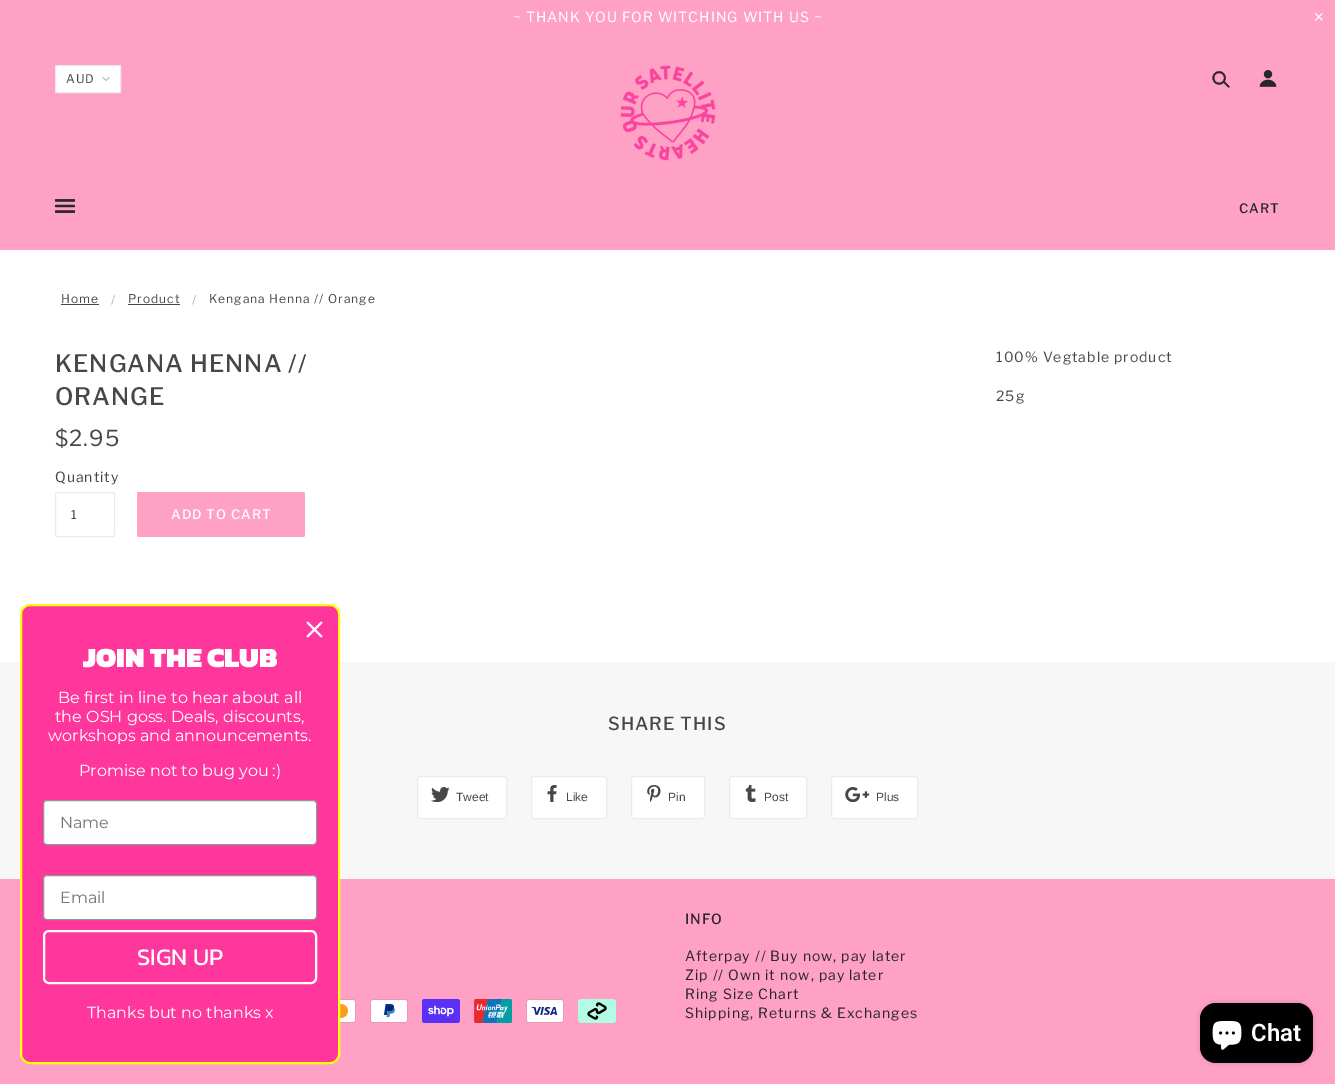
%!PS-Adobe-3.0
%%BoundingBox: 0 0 1335 1084
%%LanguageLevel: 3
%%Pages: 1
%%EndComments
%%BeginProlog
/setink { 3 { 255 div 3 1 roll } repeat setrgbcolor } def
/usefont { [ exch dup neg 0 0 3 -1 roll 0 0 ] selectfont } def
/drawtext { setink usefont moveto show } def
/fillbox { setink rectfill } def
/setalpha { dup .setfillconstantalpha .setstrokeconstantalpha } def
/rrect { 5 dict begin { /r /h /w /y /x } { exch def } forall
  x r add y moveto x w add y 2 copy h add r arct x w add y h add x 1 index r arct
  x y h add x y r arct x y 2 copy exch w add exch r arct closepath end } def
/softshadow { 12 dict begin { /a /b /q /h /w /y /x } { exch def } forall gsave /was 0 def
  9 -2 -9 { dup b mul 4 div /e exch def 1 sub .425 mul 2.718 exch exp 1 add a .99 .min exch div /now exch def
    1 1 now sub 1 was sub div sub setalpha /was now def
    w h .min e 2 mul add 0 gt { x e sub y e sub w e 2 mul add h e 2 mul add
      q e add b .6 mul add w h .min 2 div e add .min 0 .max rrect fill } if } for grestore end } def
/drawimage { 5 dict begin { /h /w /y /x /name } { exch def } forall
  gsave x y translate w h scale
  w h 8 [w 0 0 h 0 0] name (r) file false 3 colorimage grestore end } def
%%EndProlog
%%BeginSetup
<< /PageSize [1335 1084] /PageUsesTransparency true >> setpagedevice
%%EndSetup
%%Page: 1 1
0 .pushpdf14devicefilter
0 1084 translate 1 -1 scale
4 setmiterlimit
0 0 1335 1084 255 255 255 fillbox
0 0 1335 250 255 160 197 fillbox
/LibreFranklin-Regular 14 usefont
255 255 255 setink
513 22 moveto 1 0 (~ THANK YOU FOR WITCHING WITH US ~) ashow
(✕) 1313 22 /DejaVuSans-Regular 14 255 255 255 drawtext
55 65 66 28 2 rrect fill
(assets/img1.rgb) 102 77 8 4 drawimage
235 235 235 setink
55.5 65.5 65 27 1.5 rrect stroke
/LibreFranklin-Regular 12 usefont
71 71 71 setink
66 83 moveto 1 0 (AUD) ashow
(assets/img2.rgb) 620 65 96 96 drawimage
(assets/img3.rgb) 1212 71 18 17 drawimage
(assets/img4.rgb) 1259 70 18 17 drawimage
(assets/img5.rgb) 55 199 20 14 drawimage
/LibreFranklin-Medium 13 usefont
39 39 39 setink
1239 213 moveto 1 0 (CART) ashow
/LibreFranklin-Regular 12 usefont
71 71 71 setink
61 303 moveto 1 0 (Home) ashow
61 304 38 1 71 71 71 fillbox
170 170 170 setink
111 304 moveto 1 0 (/) ashow
71 71 71 setink
128 303 moveto 1 0 (Product) ashow
128 304 52 1 71 71 71 fillbox
170 170 170 setink
192 304 moveto 1 0 (/) ashow
71 71 71 setink
209 303 moveto 1 0 (Kengana Henna // Orange) ashow
/LibreFranklin-Medium 24 usefont
55 372 moveto 1 0 (KENGANA HENNA //) ashow
55 405 moveto 1 0 (ORANGE) ashow
/LibreFranklin-Regular 14 usefont
996 362 moveto 1 0 (100% Vegtable product) ashow
996 401 moveto 1 0 (25g) ashow
/LibreFranklin-Regular 22 usefont
55 446 moveto 1 0 ($2.95) ashow
/LibreFranklin-Regular 14 usefont
55 482 moveto 1 0 (Quantity) ashow
235 235 235 setink
55.5 492.5 59 44 1.5 rrect stroke
/LibreFranklin-Regular 12 usefont
71 71 71 setink
71 519 moveto 1 0 (1) ashow
255 160 197 setink
137 492 168 45 2 rrect fill
/LibreFranklin-Medium 13 usefont
255 255 255 setink
171 519 moveto 1 0 (ADD TO CART) ashow
0 662 1335 217 247 247 247 fillbox
/LibreFranklin-Medium 18 usefont
71 71 71 setink
608 730 moveto 1 0 (SHARE THIS) ashow
255 255 255 setink
417.5 776.5 89 42 2.5 rrect gsave fill grestore
235 235 235 setink
stroke
(assets/img6.rgb) 431 787 19 15 drawimage
(Tweet) 456 801 /LiberationSans-Regular 12 71 71 71 drawtext
255 255 255 setink
531.5 776.5 75 42 2.5 rrect gsave fill grestore
235 235 235 setink
stroke
(assets/img7.rgb) 547 785 10 17 drawimage
(Like) 566 801 /LiberationSans-Regular 12 71 71 71 drawtext
255 255 255 setink
631.5 776.5 73 42 2.5 rrect gsave fill grestore
235 235 235 setink
stroke
(assets/img8.rgb) 647 785 14 17 drawimage
(Pin) 668 801 /LiberationSans-Regular 12 71 71 71 drawtext
255 255 255 setink
729.5 776.5 77 42 2.5 rrect gsave fill grestore
235 235 235 setink
stroke
(assets/img9.rgb) 745 785 11 17 drawimage
(Post) 764 801 /LiberationSans-Regular 12 71 71 71 drawtext
255 255 255 setink
831.5 776.5 86 42 2.5 rrect gsave fill grestore
235 235 235 setink
stroke
(assets/img10.rgb) 845 787 25 15 drawimage
(Plus) 876 801 /LiberationSans-Regular 12 71 71 71 drawtext
0 879 1335 205 255 160 197 fillbox
(assets/img11.rgb) 340 999 16 24 drawimage
(assets/img12.rgb) 370 999 38 24 drawimage
(assets/img13.rgb) 422 999 38 24 drawimage
(assets/img14.rgb) 474 999 38 24 drawimage
(assets/img15.rgb) 526 999 38 24 drawimage
(assets/img16.rgb) 578 999 38 24 drawimage
/LibreFranklin-Medium 14 usefont
39 39 39 setink
685 924 moveto 1 0 (INFO) ashow
/LibreFranklin-Regular 14 usefont
685 961 moveto 1 0 (Afterpay // Buy now, pay later) ashow
685 980 moveto 1 0 (Zip // Own it now, pay later) ashow
685 999 moveto 1 0 (Ring Size Chart) ashow
685 1018 moveto 1 0 (Shipping, Returns & Exchanges) ashow
255 54 156 setink
21 605 318 458 9 rrect gsave fill grestore
255 255 13 setink
2 setlinewidth
stroke
255 255 255 setink
1.8 setlinewidth
1 setlinecap
1 setlinejoin
307.5 622.5 moveto 321.5 636.5 lineto 307.5 636.5 moveto 321.5 622.5 lineto closepath stroke
(JOIN THE CLUB) 83 667 /Kanit-Black 28 255 255 255 drawtext
(Be first in line to hear about all) 58 703 /Montserrat-Thin 16 255 255 255 drawtext
(the OSH goss. Deals, discounts,) 55 722 /Montserrat-Thin 16 255 255 255 drawtext
(workshops and announcements.) 48 741 /Montserrat-Thin 16 255 255 255 drawtext
(Promise not to bug you :\)) 79 776 /Montserrat-Thin 16 255 255 255 drawtext
43.5 800.5 273 44 3.5 rrect gsave fill grestore
148 149 150 setink
1 setlinewidth
0 setlinecap
0 setlinejoin
stroke
(Name) 60 828 /Montserrat-Thin 16 118 118 118 drawtext
255 255 255 setink
43.5 875.5 273 44 3.5 rrect gsave fill grestore
148 149 150 setink
stroke
(Email) 60 903 /Montserrat-Thin 16 118 118 118 drawtext
255 255 255 setink
2 setlinewidth
44 931 272 52 5 rrect stroke
(SIGN UP) 137 965 /Kanit-Regular 24 255 255 255 drawtext
(Thanks but no thanks x) 87 1018 /Montserrat-Thin 16 255 255 255 drawtext
0 0 0 setink
1200 1003 113 60 16 2.5 0.15 softshadow
1200 1003 113 60 16 rrect fill
(assets/img17.rgb) 1212 1021 30 29 drawimage
(Chat) 1251 1041 /Roboto-SemiBold 24 255 255 255 drawtext
.poppdf14devicefilter showpage
%%EOF
